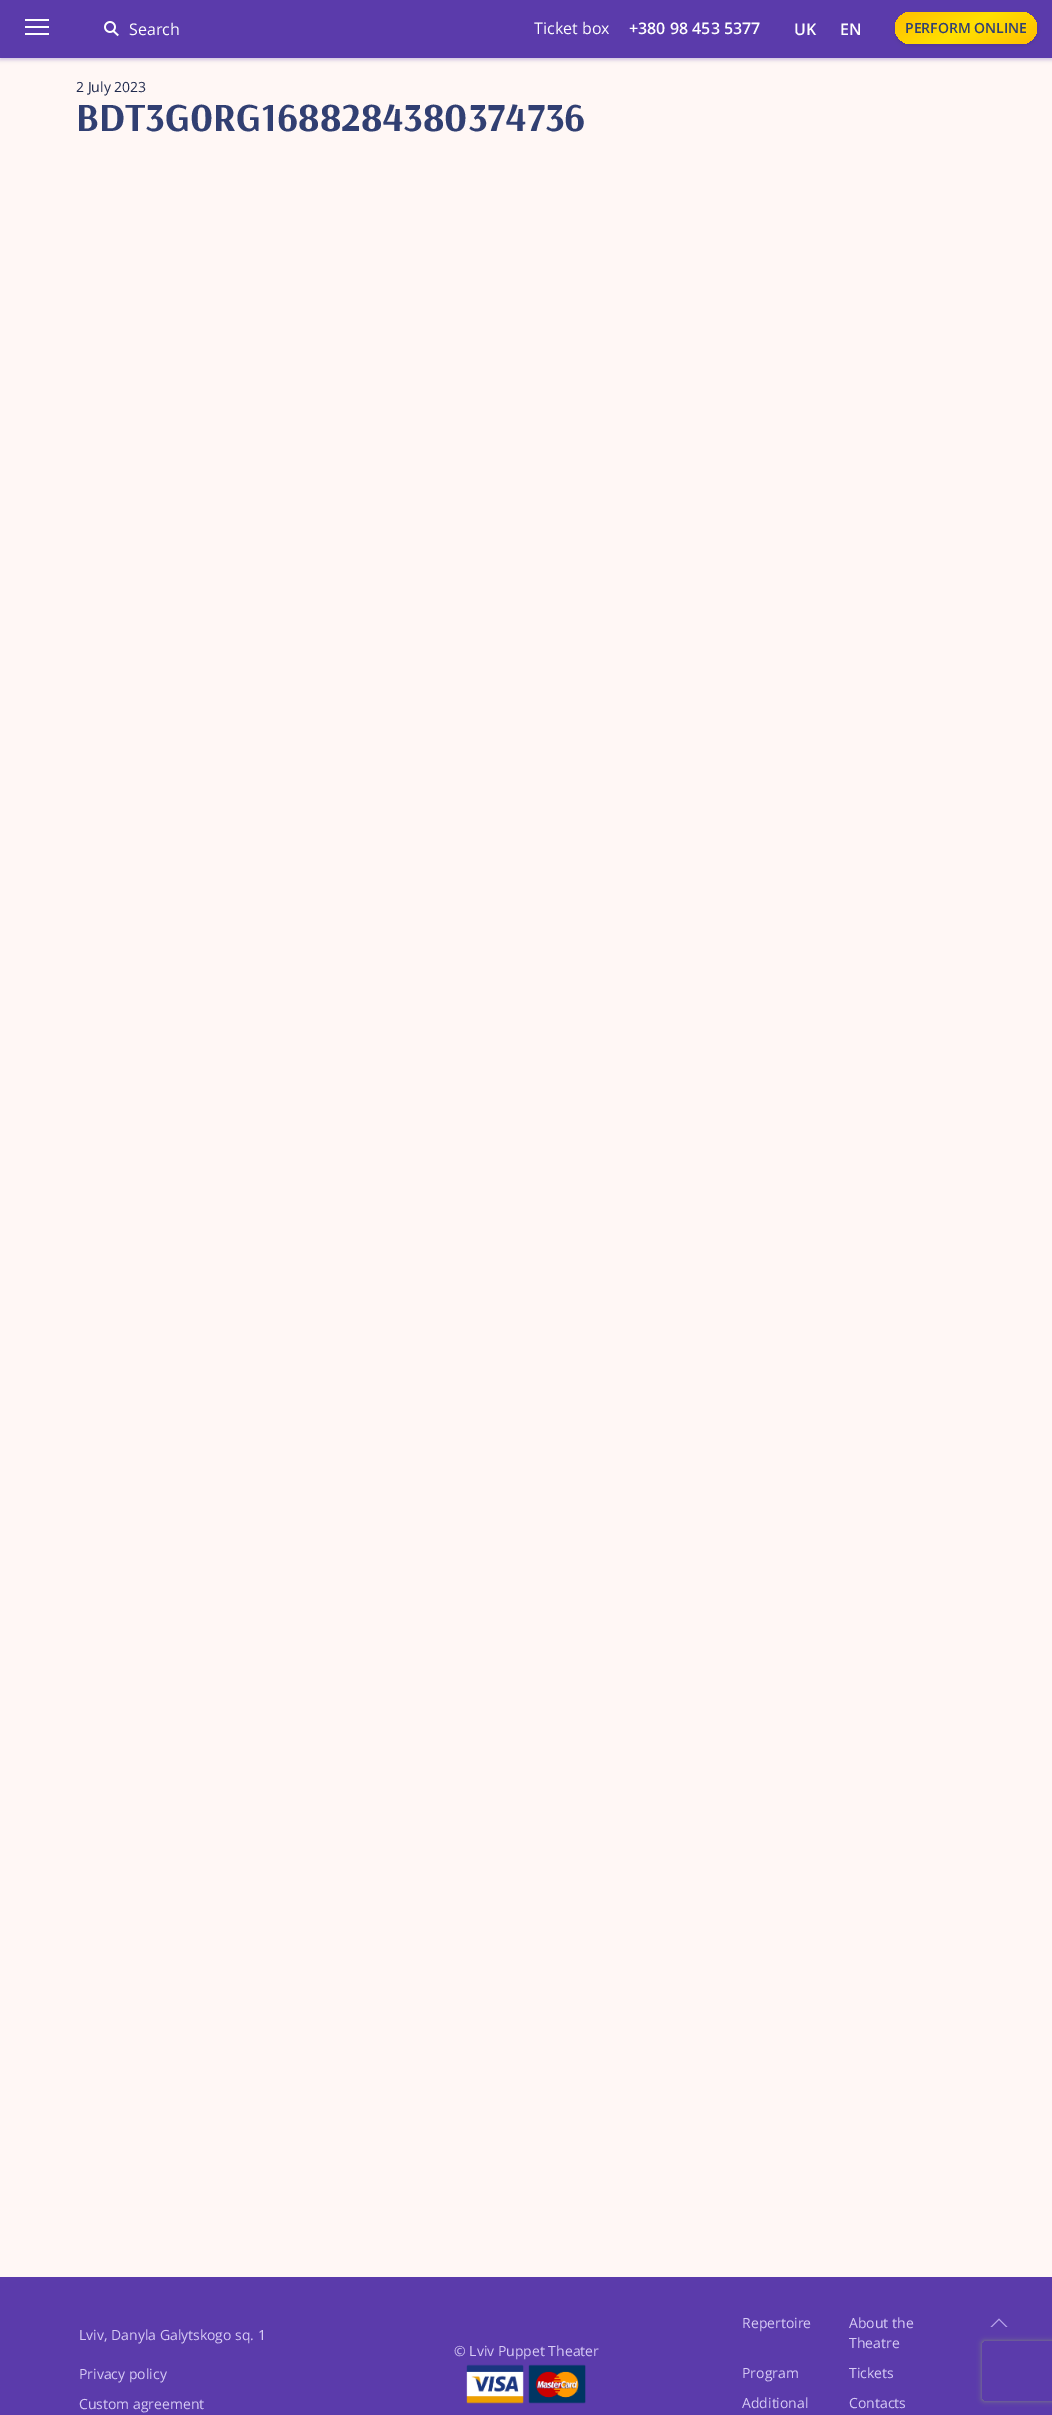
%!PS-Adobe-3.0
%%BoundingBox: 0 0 1052 2415
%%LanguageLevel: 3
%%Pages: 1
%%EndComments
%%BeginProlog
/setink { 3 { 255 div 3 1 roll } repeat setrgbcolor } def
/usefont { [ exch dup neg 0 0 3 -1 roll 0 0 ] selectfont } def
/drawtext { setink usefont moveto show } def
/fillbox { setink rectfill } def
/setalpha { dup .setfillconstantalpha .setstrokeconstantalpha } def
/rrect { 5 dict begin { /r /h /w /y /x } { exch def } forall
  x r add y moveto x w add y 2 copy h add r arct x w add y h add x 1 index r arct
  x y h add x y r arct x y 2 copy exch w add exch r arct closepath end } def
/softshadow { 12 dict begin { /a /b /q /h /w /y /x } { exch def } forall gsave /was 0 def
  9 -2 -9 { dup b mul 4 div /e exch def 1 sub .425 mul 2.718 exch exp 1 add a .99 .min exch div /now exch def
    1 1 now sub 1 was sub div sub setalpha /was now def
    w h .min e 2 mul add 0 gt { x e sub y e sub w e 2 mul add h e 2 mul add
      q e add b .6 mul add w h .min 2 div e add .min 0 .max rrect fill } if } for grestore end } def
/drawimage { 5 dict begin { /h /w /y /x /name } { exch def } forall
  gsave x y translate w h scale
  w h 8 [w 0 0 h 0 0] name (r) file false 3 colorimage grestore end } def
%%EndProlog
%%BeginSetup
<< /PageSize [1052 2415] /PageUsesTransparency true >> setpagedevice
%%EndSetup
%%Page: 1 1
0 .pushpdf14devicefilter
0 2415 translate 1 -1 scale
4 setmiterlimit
0 0 1052 2415 255 247 245 fillbox
91 59 171 setink
0 2 1052 58 0 2 0.3 softshadow
0 0 1052 58 91 59 171 fillbox
25 19 24 2 255 255 255 fillbox
25 26 24 2 255 255 255 fillbox
25 33 24 2 255 255 255 fillbox
(assets/img1.rgb) 104 21 15 16 drawimage
(Search) 129 35 /OpenSans-Regular 16 255 255 255 drawtext
(Ticket box) 534 34 /OpenSans-Regular 16 255 255 255 drawtext
(+380 98 453 5377) 629 34 /OpenSans-SemiBold 16 255 255 255 drawtext
(UK) 794 35 /OpenSans-SemiBold 16 255 255 255 drawtext
(EN) 840 35 /OpenSans-SemiBold 16 255 255 255 drawtext
0 0 0 setink
895 14 142 32 16 2 0.1 softshadow
gsave 895 12 142 32 16 rrect clip newpath
<< /ShadingType 2 /ColorSpace /DeviceRGB /Coords [941 -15 991 71] /Extend [true true] /Function << /FunctionType 3 /Domain [0 1] /Functions [<< /FunctionType 2 /Domain [0 1] /C0 [1 0.745 0] /C1 [1 0.878 0] /N 1 >> << /FunctionType 2 /Domain [0 1] /C0 [1 0.878 0] /C1 [1 0.745 0] /N 1 >>] /Bounds [0.5] /Encode [0 1 0 1] >> >> shfill grestore
(PERFORM ONLINE) 905 33 /OpenSans-SemiBold 14 49 63 114 drawtext
(2 July 2023) 76 92 /OpenSans-Regular 14 32 42 78 drawtext
(BDT3G0RG1688284380374736) 76 131 /Arsenal-Bold 40 49 63 114 drawtext
0 2277 1052 138 91 59 171 fillbox
(Lviv, Danyla Galytskogo sq. 1) 79 2340 /OpenSans-Regular 14 215 203 245 drawtext
(Privacy policy) 79 2379 /OpenSans-Regular 14 215 203 245 drawtext
(Custom agreement) 79 2409 /OpenSans-Regular 14 215 203 245 drawtext
(© Lviv Puppet Theater) 454 2356 /OpenSans-Regular 14 215 203 245 drawtext
(assets/img2.rgb) 466 2364 120 40 drawimage
(Repertoire) 742 2328 /OpenSans-Regular 14 215 203 245 drawtext
(About the) 849 2328 /OpenSans-Regular 14 215 203 245 drawtext
(Theatre) 849 2348 /OpenSans-Regular 14 215 203 245 drawtext
(Program) 742 2378 /OpenSans-Regular 14 215 203 245 drawtext
(Tickets) 849 2378 /OpenSans-Regular 14 215 203 245 drawtext
(Additional) 742 2408 /OpenSans-Regular 14 215 203 245 drawtext
(Contacts) 849 2408 /OpenSans-Regular 14 215 203 245 drawtext
184 165 235 setink
990.5 2327 moveto 999 2318.5 lineto 999 2320 lineto 992 2327 lineto closepath 999 2318.5 moveto 1007.5 2327 lineto 1006 2327 lineto 999 2320 lineto closepath fill
gsave
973 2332 moveto 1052 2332 lineto 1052 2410 lineto 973 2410 lineto closepath 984 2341 moveto 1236 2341 lineto 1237 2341 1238 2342 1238 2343 curveto 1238 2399 lineto 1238 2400 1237 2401 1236 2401 curveto 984 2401 lineto 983 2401 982 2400 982 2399 curveto 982 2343 lineto 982 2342 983 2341 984 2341 curveto closepath eoclip newpath
128 128 128 setink
982 2341 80 60 2 2.5 1 softshadow
grestore
.poppdf14devicefilter showpage
%%EOF
